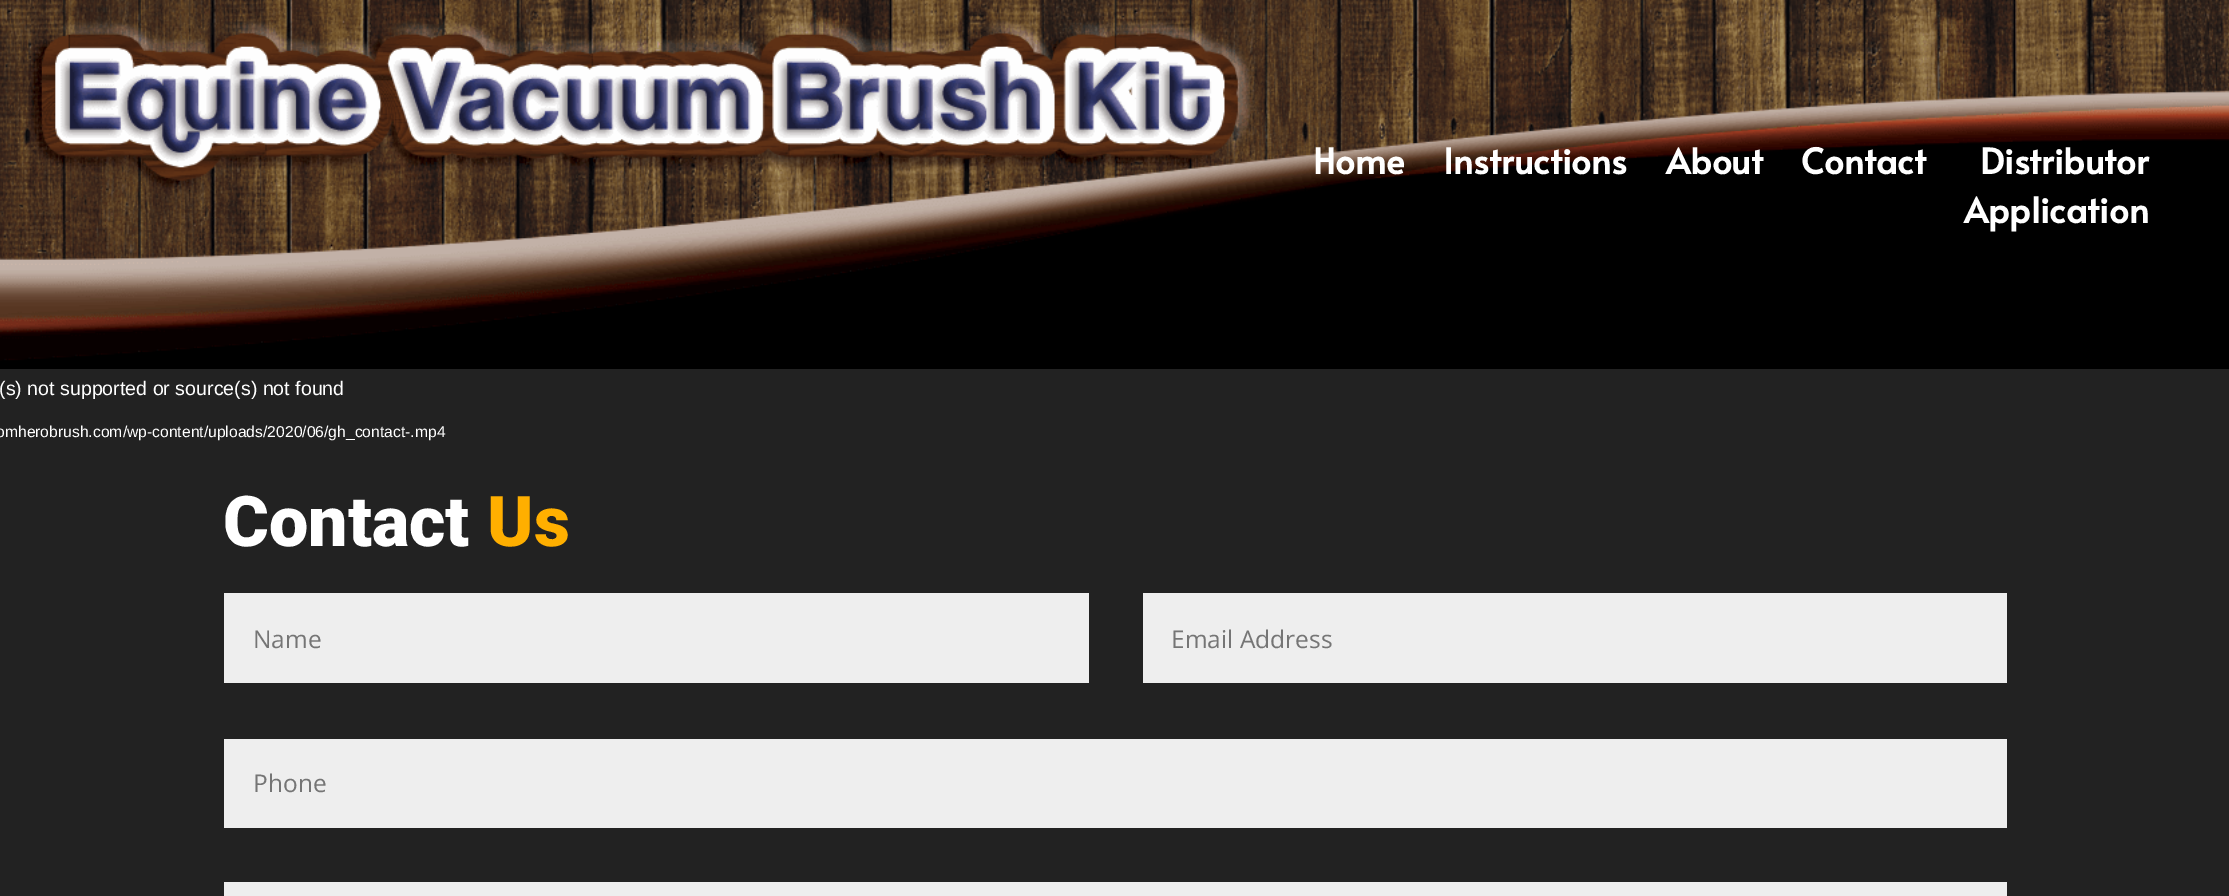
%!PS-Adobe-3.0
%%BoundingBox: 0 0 2229 896
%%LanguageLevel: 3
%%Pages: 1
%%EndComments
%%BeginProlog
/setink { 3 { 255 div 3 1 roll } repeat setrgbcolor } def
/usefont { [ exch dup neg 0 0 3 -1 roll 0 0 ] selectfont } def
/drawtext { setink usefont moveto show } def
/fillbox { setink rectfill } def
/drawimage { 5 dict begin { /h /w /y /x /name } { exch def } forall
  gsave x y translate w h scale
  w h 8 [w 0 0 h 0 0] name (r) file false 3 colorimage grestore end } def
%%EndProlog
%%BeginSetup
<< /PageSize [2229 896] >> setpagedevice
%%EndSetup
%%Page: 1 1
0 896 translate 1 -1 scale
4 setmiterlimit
0 0 2229 896 34 34 34 fillbox
0 139 2229 230 0 0 0 fillbox
(assets/img1.rgb) 0 0 2229 361 drawimage
(Home) 1313 174 /Alata-Bold 35 255 255 255 drawtext
(Instructions) 1443 174 /Alata-Bold 35 255 255 255 drawtext
(About) 1666 174 /Alata-Bold 35 255 255 255 drawtext
(Contact) 1801 174 /Alata-Bold 35 255 255 255 drawtext
(Distributor) 1980 174 /Alata-Bold 35 255 255 255 drawtext
(Application) 1964 223 /Alata-Bold 35 255 255 255 drawtext
(\(s\) not supported or source\(s\) not found) -1 395 /LiberationSans-Regular 19.6 255 255 255 drawtext
(omherobrush.com/wp-content/uploads/2020/06/gh_contact-.mp4) -4 437 /LiberationSans-Regular 15.7 255 255 255 drawtext
(Contact) 223 546 /Roboto-Black 70 255 255 255 drawtext
(Us) 487 546 /Roboto-Black 70 255 175 0 drawtext
224 593 865 90 238 238 238 fillbox
(Name) 253 648 /OpenSans-Regular 24.5 117 117 117 drawtext
1143 593 864 90 238 238 238 fillbox
(Email Address) 1171 648 /OpenSans-Regular 24.5 117 117 117 drawtext
224 739 1783 89 238 238 238 fillbox
(Phone) 253 792 /OpenSans-Regular 24.5 117 117 117 drawtext
224 882 1783 14 238 238 238 fillbox
showpage
%%EOF
